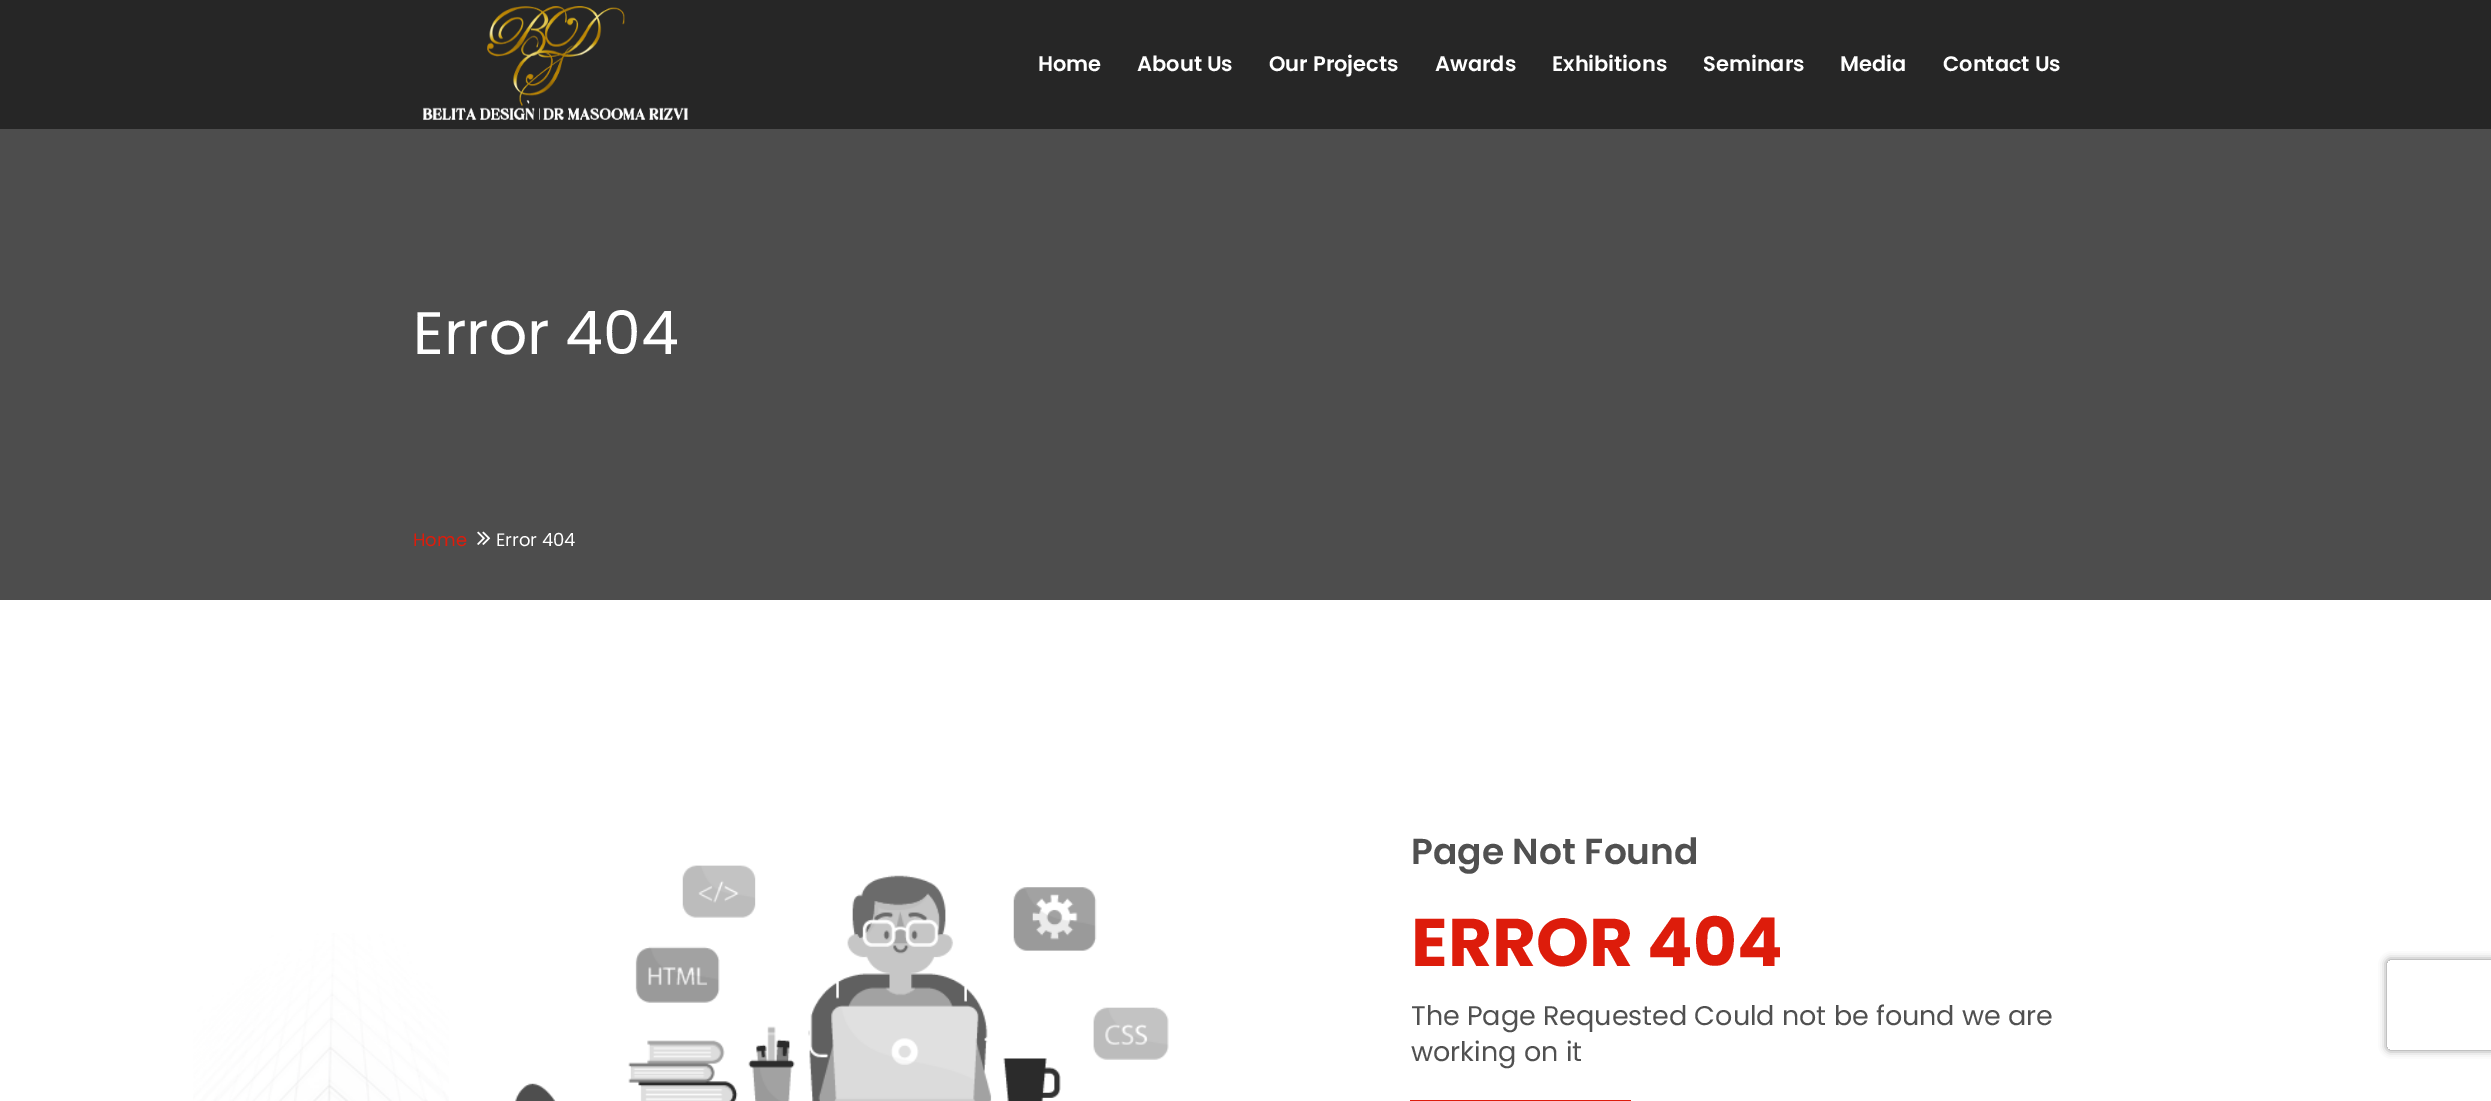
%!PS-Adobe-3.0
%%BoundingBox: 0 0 2491 1101
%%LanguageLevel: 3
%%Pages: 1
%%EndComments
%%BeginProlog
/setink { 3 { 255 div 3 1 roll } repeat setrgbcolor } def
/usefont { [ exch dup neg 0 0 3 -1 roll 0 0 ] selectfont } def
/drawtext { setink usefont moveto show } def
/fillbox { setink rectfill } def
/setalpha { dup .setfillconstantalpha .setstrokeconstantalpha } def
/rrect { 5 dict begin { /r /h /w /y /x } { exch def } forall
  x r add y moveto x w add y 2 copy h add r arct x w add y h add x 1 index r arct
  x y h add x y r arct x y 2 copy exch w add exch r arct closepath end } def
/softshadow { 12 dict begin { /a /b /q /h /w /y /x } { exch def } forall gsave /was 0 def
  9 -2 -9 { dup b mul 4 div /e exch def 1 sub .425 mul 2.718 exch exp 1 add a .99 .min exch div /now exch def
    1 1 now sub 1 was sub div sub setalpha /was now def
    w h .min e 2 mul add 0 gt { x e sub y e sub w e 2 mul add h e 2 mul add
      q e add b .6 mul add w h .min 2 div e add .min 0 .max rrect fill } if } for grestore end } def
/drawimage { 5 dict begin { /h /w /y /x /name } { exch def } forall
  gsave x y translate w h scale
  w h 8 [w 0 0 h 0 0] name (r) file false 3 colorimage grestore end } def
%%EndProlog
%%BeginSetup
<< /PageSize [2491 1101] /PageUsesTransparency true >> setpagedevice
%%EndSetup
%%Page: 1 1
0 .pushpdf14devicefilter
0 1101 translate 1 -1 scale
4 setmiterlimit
0 0 2491 1101 255 255 255 fillbox
0 0 2491 129 38 38 38 fillbox
(assets/img1.rgb) 423 6 265 114 drawimage
(Home) 1038 71 /Poppins-SemiBold 21 255 255 255 drawtext
(About Us) 1137 71 /Poppins-SemiBold 21 255 255 255 drawtext
(Our Projects) 1269 71 /Poppins-SemiBold 21 255 255 255 drawtext
(Awards) 1435 71 /Poppins-SemiBold 21 255 255 255 drawtext
(Exhibitions) 1552 71 /Poppins-SemiBold 21 255 255 255 drawtext
(Seminars) 1703 71 /Poppins-SemiBold 21 255 255 255 drawtext
(Media) 1840 71 /Poppins-SemiBold 21 255 255 255 drawtext
(Contact Us) 1943 71 /Poppins-SemiBold 21 255 255 255 drawtext
0 129 2491 471 77 77 77 fillbox
(Error 404) 413 354 /Poppins-Regular 60 255 255 255 drawtext
(Home) 413 546 /Poppins-Regular 18 221 28 11 drawtext
(assets/img2.rgb) 477 531 14 14 drawimage
(Error 404) 496 546 /Poppins-Regular 18 255 255 255 drawtext
(assets/img3.rgb) 193 933 256 168 drawimage
(assets/img4.rgb) 515 865 654 236 drawimage
(Page Not Found) 1411 864 /Poppins-SemiBold 36 80 80 80 drawtext
(ERROR 404) 1411 966 /Poppins-Bold 67.5 221 28 11 drawtext
(The Page Requested Could not be found we are) 1411 1025 /Poppins-Regular 27 80 80 80 drawtext
(working on it) 1411 1061 /Poppins-Regular 27 80 80 80 drawtext
1410 1100 221 1 221 28 11 fillbox
gsave
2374 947 moveto 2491 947 lineto 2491 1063 lineto 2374 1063 lineto closepath 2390 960 moveto 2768 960 lineto 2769.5 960 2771 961.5 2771 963 curveto 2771 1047 lineto 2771 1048.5 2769.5 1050 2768 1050 curveto 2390 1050 lineto 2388.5 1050 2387 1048.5 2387 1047 curveto 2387 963 lineto 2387 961.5 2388.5 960 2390 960 curveto closepath eoclip newpath
128 128 128 setink
2387 960 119 90 3 4 1 softshadow
grestore
.poppdf14devicefilter showpage
%%EOF
